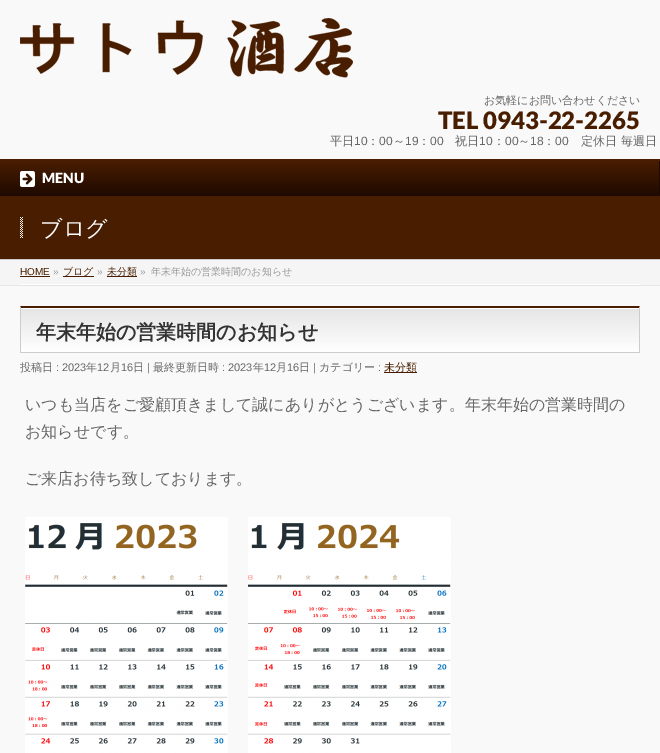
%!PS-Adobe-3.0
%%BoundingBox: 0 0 660 753
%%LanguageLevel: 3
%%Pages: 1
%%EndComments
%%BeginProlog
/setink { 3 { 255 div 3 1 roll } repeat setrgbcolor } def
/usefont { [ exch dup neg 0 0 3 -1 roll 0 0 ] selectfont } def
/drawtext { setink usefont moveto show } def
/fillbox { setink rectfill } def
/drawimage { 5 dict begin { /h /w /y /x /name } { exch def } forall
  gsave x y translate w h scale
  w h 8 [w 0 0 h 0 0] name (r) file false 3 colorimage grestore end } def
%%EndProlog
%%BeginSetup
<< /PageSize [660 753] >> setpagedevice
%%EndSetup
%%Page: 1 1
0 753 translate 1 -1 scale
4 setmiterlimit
0 0 660 753 249 249 249 fillbox
(assets/img1.rgb) 20 18 333 60 drawimage
(お気軽にお問い合わせください) 484 104 /WenQuanYiZenHei-Medium 11 102 102 102 drawtext
(TEL 0943-22-2265) 438 129 /Lato-Black 24 73 29 0 drawtext
(平日) 330 145 /WenQuanYiZenHei-Medium 12 102 102 102 drawtext
(10) 354 145 /LiberationSans-Regular 12 102 102 102 drawtext
(：) 367 145 /WenQuanYiZenHei-Medium 12 102 102 102 drawtext
(00) 379 145 /LiberationSans-Regular 12 102 102 102 drawtext
(～) 393 145 /WenQuanYiZenHei-Medium 12 102 102 102 drawtext
(19) 405 145 /LiberationSans-Regular 12 102 102 102 drawtext
(：) 418 145 /WenQuanYiZenHei-Medium 12 102 102 102 drawtext
(00) 430 145 /LiberationSans-Regular 12 102 102 102 drawtext
(祝日) 455 145 /WenQuanYiZenHei-Medium 12 102 102 102 drawtext
(10) 479 145 /LiberationSans-Regular 12 102 102 102 drawtext
(：) 493 145 /WenQuanYiZenHei-Medium 12 102 102 102 drawtext
(00) 505 145 /LiberationSans-Regular 12 102 102 102 drawtext
(～) 518 145 /WenQuanYiZenHei-Medium 12 102 102 102 drawtext
(18) 530 145 /LiberationSans-Regular 12 102 102 102 drawtext
(：) 543 145 /WenQuanYiZenHei-Medium 12 102 102 102 drawtext
(00) 555 145 /LiberationSans-Regular 12 102 102 102 drawtext
(定休日 毎週日) 581 145 /WenQuanYiZenHei-Medium 12 102 102 102 drawtext
0 159 660 2 73 29 0 fillbox
gsave 0 161 moveto 659 161 lineto 659 196 lineto 0 196 lineto closepath clip newpath
<< /ShadingType 2 /ColorSpace /DeviceRGB /Coords [330 161 330 196] /Extend [true true] /Function << /FunctionType 2 /Domain [0 1] /C0 [0.286 0.114 0] /C1 [0.118 0.035 0] /N 1 >> >> shfill grestore
659 161 1 35 30 9 0 fillbox
(assets/img2.rgb) 20 171 15 16 drawimage
(MENU) 42 183 /Lato-Black 14 255 255 255 drawtext
0 196 660 63 73 29 0 fillbox
0 259 660 1 204 204 204 fillbox
(assets/img3.rgb) 20 217 3 21 drawimage
(ブログ) 40 236 /WenQuanYiZenHei-Medium 22 255 255 255 drawtext
0 260 660 25 245 245 245 fillbox
0 285 660 1 229 229 229 fillbox
20 284 620 1 255 255 255 fillbox
(HOME) 20 275 /LiberationSans-Regular 10 73 29 0 drawtext
20 276 30 1 73 29 0 fillbox
(») 53 275 /LiberationSans-Regular 10 153 153 153 drawtext
63 276 31 1 73 29 0 fillbox
(ブログ) 63 275 /WenQuanYiZenHei-Medium 10 73 29 0 drawtext
(») 97 275 /LiberationSans-Regular 10 153 153 153 drawtext
107 276 30 1 73 29 0 fillbox
(未分類) 107 275 /WenQuanYiZenHei-Medium 10 73 29 0 drawtext
(») 140 275 /LiberationSans-Regular 10 153 153 153 drawtext
(年末年始の営業時間のお知らせ) 151 275 /WenQuanYiZenHei-Medium 10 153 153 153 drawtext
gsave 21 309 moveto 639 309 lineto 639 352 lineto 21 352 lineto closepath clip newpath
<< /ShadingType 2 /ColorSpace /DeviceRGB /Coords [21 308 21 352] /Extend [true true] /Function << /FunctionType 2 /Domain [0 1] /C0 [0.898 0.898 0.898] /C1 [1 1 1] /N 1 >> >> shfill grestore
21 308 618 1 255 255 255 fillbox
73 29 0 setink
20 306 moveto 640 306 lineto 639 308 lineto 21 308 lineto closepath fill
204 204 204 setink
640 306 moveto 640 353 lineto 639 352 lineto 639 308 lineto closepath fill
20 352 620 1 204 204 204 fillbox
20 353 moveto 20 306 lineto 21 308 lineto 21 352 lineto closepath fill
(年末年始の営業時間のお知らせ) 36 339 /WenQuanYiZenHei-Bold 20 51 51 51 drawtext
(投稿日) 20 371 /WenQuanYiZenHei-Medium 11 102 102 102 drawtext
(: 2023) 56 371 /LiberationSans-Regular 11 102 102 102 drawtext
(年) 86 371 /WenQuanYiZenHei-Medium 11 102 102 102 drawtext
(12) 97 371 /LiberationSans-Regular 11 102 102 102 drawtext
(月) 110 371 /WenQuanYiZenHei-Medium 11 102 102 102 drawtext
(16) 121 371 /LiberationSans-Regular 11 102 102 102 drawtext
(日) 133 371 /WenQuanYiZenHei-Medium 11 102 102 102 drawtext
(|) 147 371 /LiberationSans-Regular 11 102 102 102 drawtext
(最終更新日時) 153 371 /WenQuanYiZenHei-Medium 11 102 102 102 drawtext
(: 2023) 222 371 /LiberationSans-Regular 11 102 102 102 drawtext
(年) 253 371 /WenQuanYiZenHei-Medium 11 102 102 102 drawtext
(12) 264 371 /LiberationSans-Regular 11 102 102 102 drawtext
(月) 276 371 /WenQuanYiZenHei-Medium 11 102 102 102 drawtext
(16) 287 371 /LiberationSans-Regular 11 102 102 102 drawtext
(日) 299 371 /WenQuanYiZenHei-Medium 11 102 102 102 drawtext
(|) 313 371 /LiberationSans-Regular 11 102 102 102 drawtext
(カテゴリー) 319 371 /WenQuanYiZenHei-Medium 11 102 102 102 drawtext
(:) 378 371 /LiberationSans-Regular 11 102 102 102 drawtext
384 372 33 1 73 29 0 fillbox
(未分類) 384 371 /WenQuanYiZenHei-Medium 11 73 29 0 drawtext
(いつも当店をご愛顧頂きまして誠にありがとうございます。年末年始の営業時間の) 25 410 /WenQuanYiZenHei-Medium 16 102 102 102 drawtext
(お知らせです。) 25 437 /WenQuanYiZenHei-Medium 16 102 102 102 drawtext
(ご来店お待ち致しております。) 25 484 /WenQuanYiZenHei-Medium 16 102 102 102 drawtext
(assets/img4.rgb) 25 517 203 236 drawimage
(assets/img5.rgb) 248 517 203 236 drawimage
showpage
%%EOF
